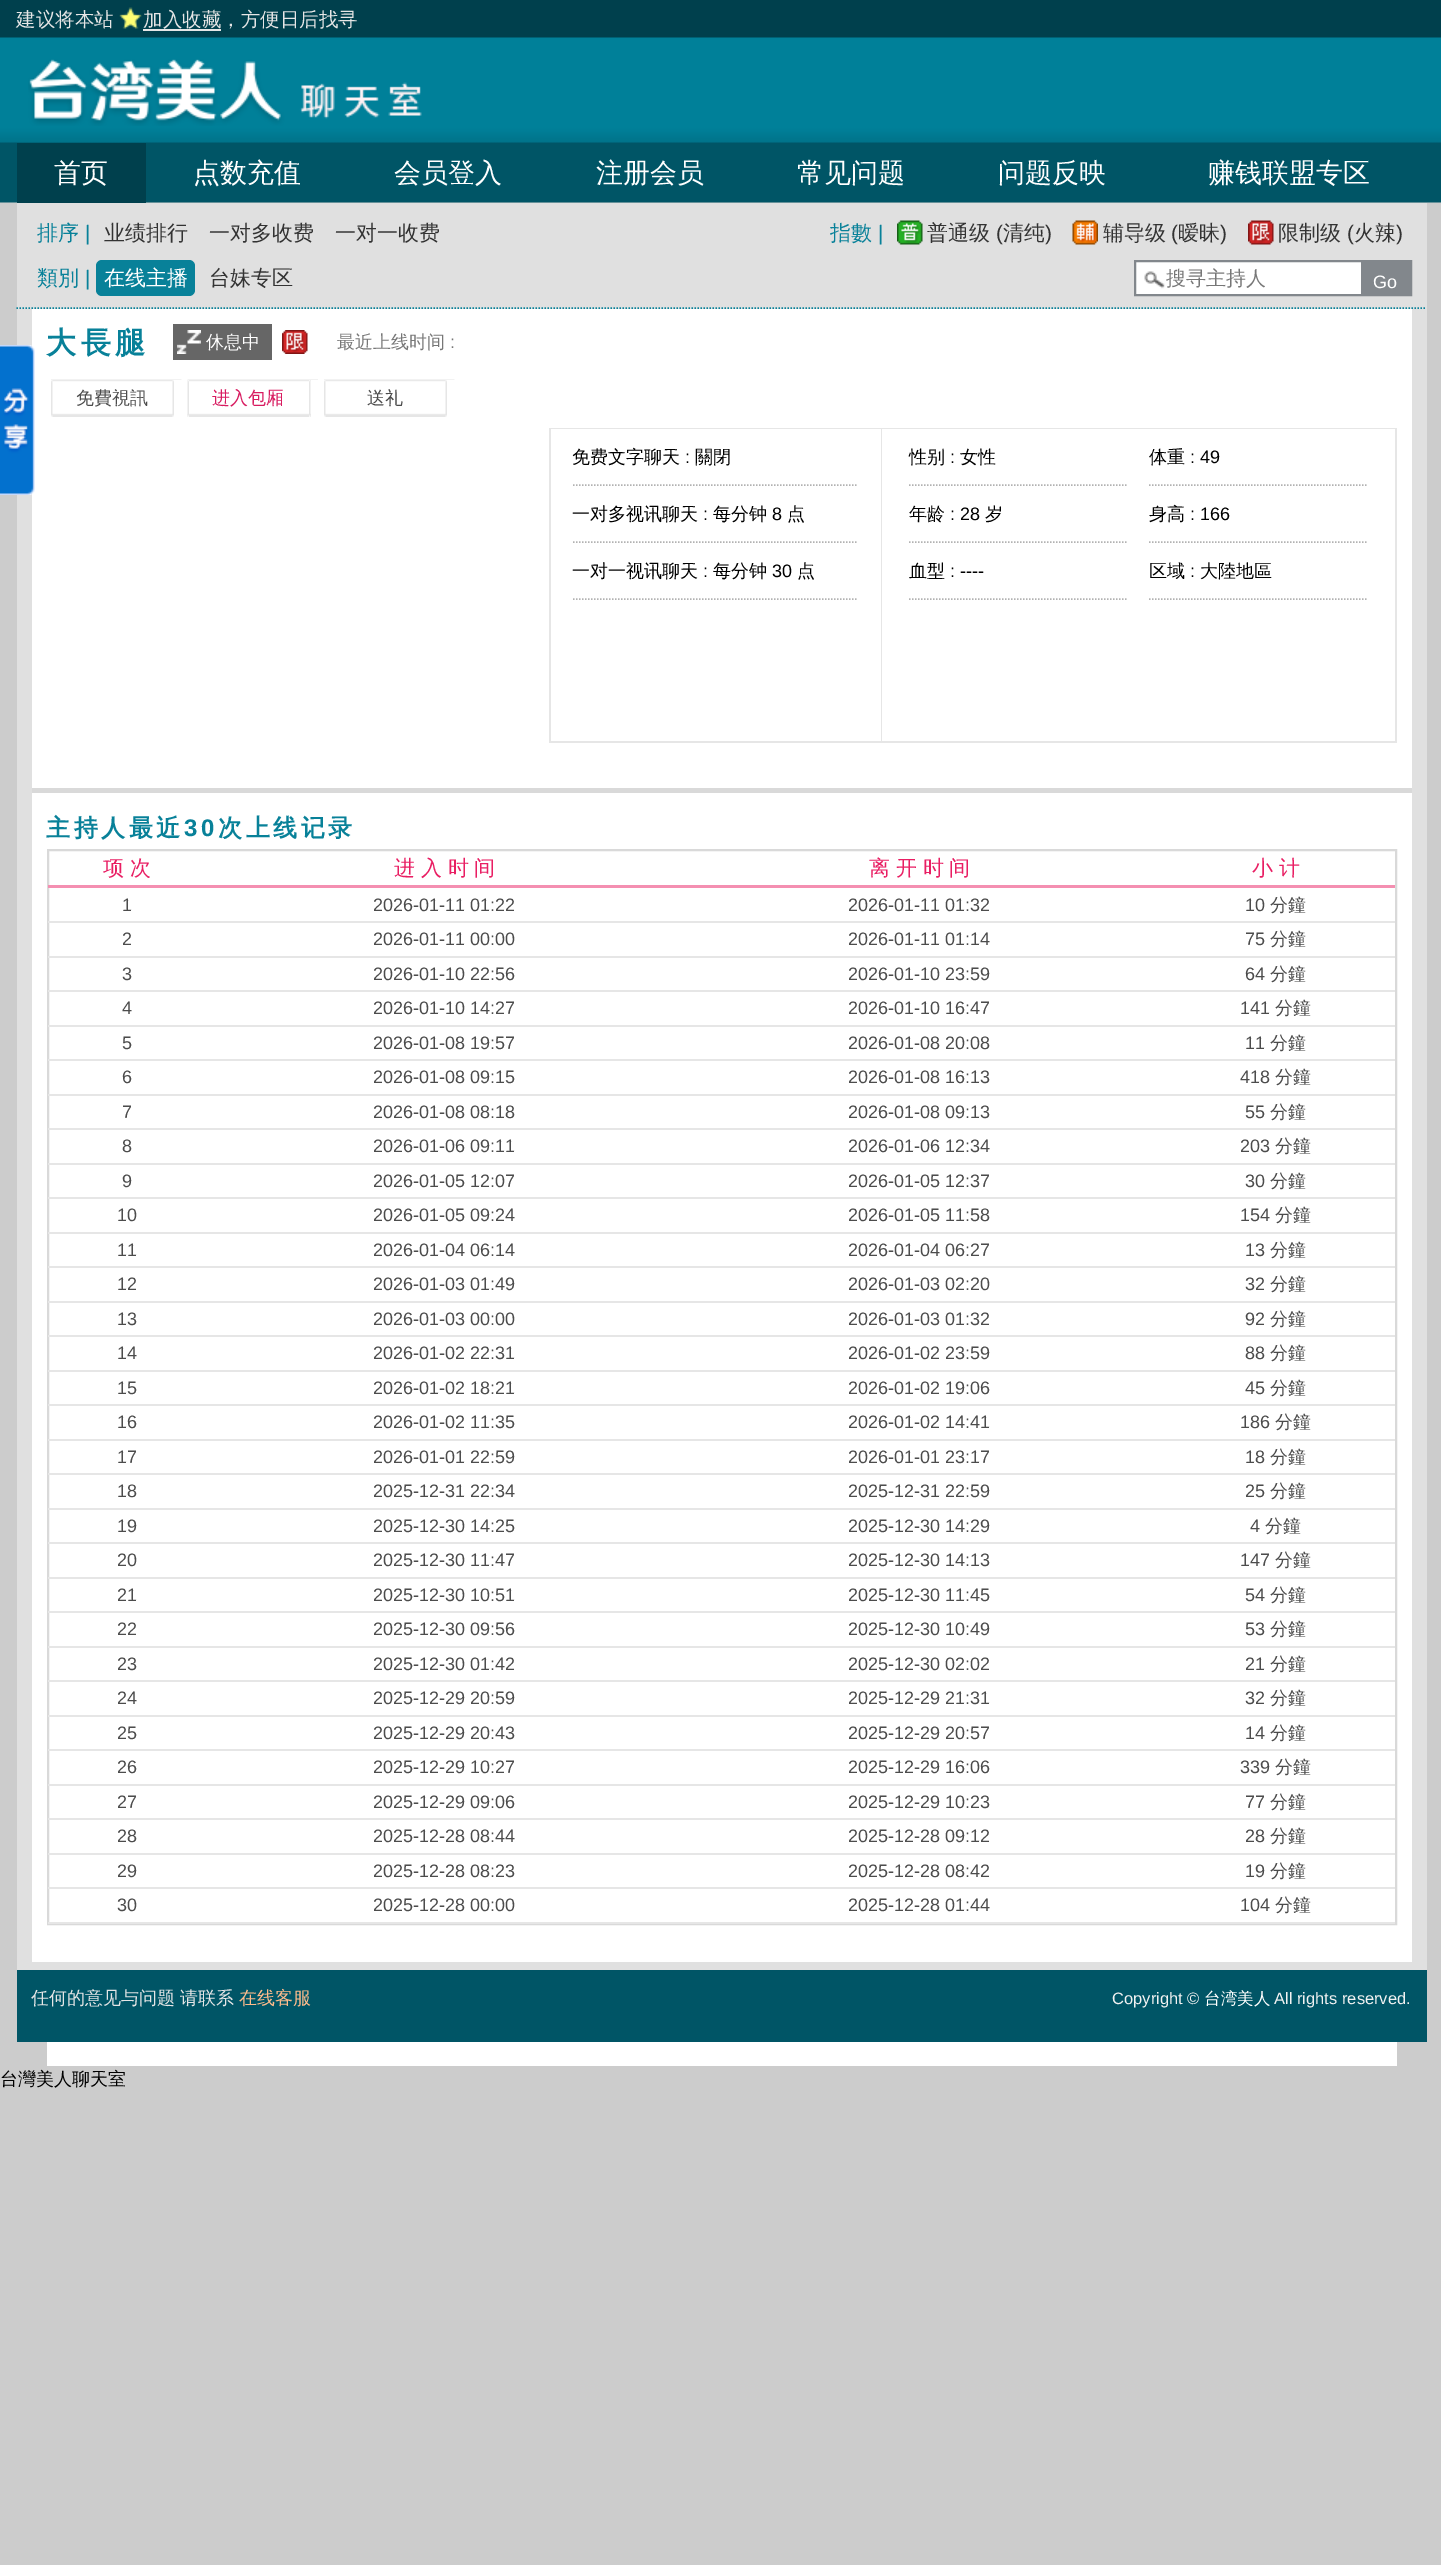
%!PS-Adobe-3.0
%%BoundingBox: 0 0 1441 2565
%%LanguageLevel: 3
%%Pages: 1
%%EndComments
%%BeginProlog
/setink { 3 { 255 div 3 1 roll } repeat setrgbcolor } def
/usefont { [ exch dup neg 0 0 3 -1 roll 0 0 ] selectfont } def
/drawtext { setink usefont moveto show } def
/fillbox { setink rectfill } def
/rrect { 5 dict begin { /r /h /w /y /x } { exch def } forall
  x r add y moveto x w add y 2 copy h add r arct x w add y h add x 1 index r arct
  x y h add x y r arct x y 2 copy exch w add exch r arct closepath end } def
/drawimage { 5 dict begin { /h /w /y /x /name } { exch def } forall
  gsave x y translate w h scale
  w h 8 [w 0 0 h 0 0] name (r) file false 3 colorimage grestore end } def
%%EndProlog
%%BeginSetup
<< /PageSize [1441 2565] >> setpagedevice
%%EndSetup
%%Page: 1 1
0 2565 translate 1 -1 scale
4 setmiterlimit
0 0 1441 2565 204 204 204 fillbox
(assets/img1.rgb) 0 0 1441 203 drawimage
(建议将本站) 16 26 /WenQuanYiZenHei-Medium 19.5 230 230 230 drawtext
(assets/img2.rgb) 119 7 23 22 drawimage
(加入收藏，方便日后找寻) 143 26 /WenQuanYiZenHei-Medium 19.5 230 230 230 drawtext
143 29 78 2 230 230 230 fillbox
(assets/img3.rgb) 28 59 394 67 drawimage
17 143 129 60 0 64 77 fillbox
(首页) 54 182 /WenQuanYiZenHei-Medium 27 255 255 255 drawtext
(点数充值) 193 182 /WenQuanYiZenHei-Medium 27 255 255 255 drawtext
(会员登入) 394 182 /WenQuanYiZenHei-Medium 27 255 255 255 drawtext
(注册会员) 596 182 /WenQuanYiZenHei-Medium 27 255 255 255 drawtext
(常见问题) 797 182 /WenQuanYiZenHei-Medium 27 255 255 255 drawtext
(问题反映) 998 182 /WenQuanYiZenHei-Medium 27 255 255 255 drawtext
(赚钱联盟专区) 1208 182 /WenQuanYiZenHei-Medium 27 255 255 255 drawtext
17 203 1410 1767 224 224 224 fillbox
8 129 153 setink
1.5 setlinewidth
[1.5 1.5] 0 setdash
16.5 308 moveto 1426.5 308 lineto stroke
(排序) 37 240 /WenQuanYiZenHei-Medium 21 8 129 153 drawtext
(|) 85 240 /LiberationSans-Regular 21 8 129 153 drawtext
(业绩排行) 104 240 /WenQuanYiZenHei-Medium 21 51 51 51 drawtext
(一对多收费) 209 240 /WenQuanYiZenHei-Medium 21 51 51 51 drawtext
(一对一收费) 335 240 /WenQuanYiZenHei-Medium 21 51 51 51 drawtext
(指數) 830 240 /WenQuanYiZenHei-Medium 21 8 129 153 drawtext
(|) 878 240 /LiberationSans-Regular 21 8 129 153 drawtext
(assets/img4.rgb) 897 220 26 25 drawimage
(普通级) 927 240 /WenQuanYiZenHei-Medium 21 51 51 51 drawtext
(\() 996 240 /LiberationSans-Regular 21 51 51 51 drawtext
(清纯) 1003 240 /WenQuanYiZenHei-Medium 21 51 51 51 drawtext
(\)) 1045 240 /LiberationSans-Regular 21 51 51 51 drawtext
(assets/img5.rgb) 1072 220 26 25 drawimage
(辅导级) 1103 240 /WenQuanYiZenHei-Medium 21 51 51 51 drawtext
(\() 1171 240 /LiberationSans-Regular 21 51 51 51 drawtext
(暧昧) 1178 240 /WenQuanYiZenHei-Medium 21 51 51 51 drawtext
(\)) 1220 240 /LiberationSans-Regular 21 51 51 51 drawtext
(assets/img6.rgb) 1248 220 26 25 drawimage
(限制级) 1278 240 /WenQuanYiZenHei-Medium 21 51 51 51 drawtext
(\() 1347 240 /LiberationSans-Regular 21 51 51 51 drawtext
(火辣) 1354 240 /WenQuanYiZenHei-Medium 21 51 51 51 drawtext
(\)) 1396 240 /LiberationSans-Regular 21 51 51 51 drawtext
(類別) 37 285 /WenQuanYiZenHei-Medium 21 8 129 153 drawtext
(|) 85 285 /LiberationSans-Regular 21 8 129 153 drawtext
96 260 99 36 6 rrect fill
(在线主播) 104 285 /WenQuanYiZenHei-Medium 21 255 255 255 drawtext
(台妹专区) 209 285 /WenQuanYiZenHei-Medium 21 51 51 51 drawtext
1136 262 225 32 255 255 255 fillbox
130 135 140 setink
2 setlinewidth
[] 0 setdash
1135 261 276 34 rectstroke
(assets/img7.rgb) 1144 271 21 18 drawimage
(搜寻主持人) 1166 285 /WenQuanYiZenHei-Medium 20 119 119 119 drawtext
1361 262 49 32 130 135 140 fillbox
(Go) 1373 288 /LiberationSans-Regular 18 255 255 255 drawtext
32 309 1380 1653 255 255 255 fillbox
(assets/img8.rgb) 0 345 35 150 drawimage
/WenQuanYiZenHei-Bold 30 usefont
8 129 153 setink
46 353 moveto 4.5 0 (大長腿) ashow
173 324 99 36 102 102 102 fillbox
(assets/img9.rgb) 177 330 24 24 drawimage
(休息中) 206 348 /WenQuanYiZenHei-Medium 18 255 255 255 drawtext
(assets/img10.rgb) 282 330 26 24 drawimage
(最近上线时间) 337 348 /WenQuanYiZenHei-Medium 18 119 119 119 drawtext
(:) 450 348 /LiberationSans-Regular 18 119 119 119 drawtext
(assets/img11.rgb) 51 379 131 38 drawimage
(assets/img12.rgb) 51 380 2 37 drawimage
(免費視訊) 76 404 /WenQuanYiZenHei-Medium 18 76 76 76 drawtext
(assets/img13.rgb) 172 380 2 37 drawimage
174 380 8 37 255 255 255 fillbox
(assets/img14.rgb) 187 379 131 38 drawimage
(assets/img15.rgb) 187 380 2 37 drawimage
(进入包厢) 212 404 /WenQuanYiZenHei-Medium 18 216 27 96 drawtext
(assets/img12.rgb) 309 380 2 37 drawimage
311 380 7 37 255 255 255 fillbox
(assets/img11.rgb) 324 379 131 38 drawimage
(assets/img12.rgb) 324 380 2 37 drawimage
(送礼) 367 404 /WenQuanYiZenHei-Medium 18 76 76 76 drawtext
(assets/img13.rgb) 445 380 2 37 drawimage
447 380 8 37 255 255 255 fillbox
549 428 848 315 230 230 230 fillbox
551 429 330 312 255 255 255 fillbox
178 178 178 setink
1.5 setlinewidth
[1.5 1.5] 0 setdash
573 485 moveto 858 485 lineto stroke
(免费文字聊天) 572 463 /WenQuanYiZenHei-Medium 18 0 0 0 drawtext
(:) 685 463 /LiberationSans-Regular 18 0 0 0 drawtext
(關閉) 695 463 /WenQuanYiZenHei-Medium 18 0 0 0 drawtext
178 178 178 setink
573 542 moveto 858 542 lineto stroke
(一对多视讯聊天) 572 520 /WenQuanYiZenHei-Medium 18 0 0 0 drawtext
(:) 703 520 /LiberationSans-Regular 18 0 0 0 drawtext
(每分钟) 713 520 /WenQuanYiZenHei-Medium 18 0 0 0 drawtext
(8) 772 520 /LiberationSans-Regular 18 0 0 0 drawtext
(点) 787 520 /WenQuanYiZenHei-Medium 18 0 0 0 drawtext
178 178 178 setink
573 599 moveto 858 599 lineto stroke
(一对一视讯聊天) 572 577 /WenQuanYiZenHei-Medium 18 0 0 0 drawtext
(:) 703 577 /LiberationSans-Regular 18 0 0 0 drawtext
(每分钟) 713 577 /WenQuanYiZenHei-Medium 18 0 0 0 drawtext
(30) 772 577 /LiberationSans-Regular 18 0 0 0 drawtext
(点) 797 577 /WenQuanYiZenHei-Medium 18 0 0 0 drawtext
882 429 513 312 255 255 255 fillbox
178 178 178 setink
909 485 moveto 1126.5 485 lineto stroke
(性别) 909 463 /WenQuanYiZenHei-Medium 18 0 0 0 drawtext
(:) 950 463 /LiberationSans-Regular 18 0 0 0 drawtext
(女性) 960 463 /WenQuanYiZenHei-Medium 18 0 0 0 drawtext
178 178 178 setink
1149 485 moveto 1366.5 485 lineto stroke
(体重) 1149 463 /WenQuanYiZenHei-Medium 18 0 0 0 drawtext
(: 49) 1190 463 /LiberationSans-Regular 18 0 0 0 drawtext
178 178 178 setink
909 542 moveto 1126.5 542 lineto stroke
(年龄) 909 520 /WenQuanYiZenHei-Medium 18 0 0 0 drawtext
(: 28) 950 520 /LiberationSans-Regular 18 0 0 0 drawtext
(岁) 985 520 /WenQuanYiZenHei-Medium 18 0 0 0 drawtext
178 178 178 setink
1149 542 moveto 1366.5 542 lineto stroke
(身高) 1149 520 /WenQuanYiZenHei-Medium 18 0 0 0 drawtext
(: 166) 1190 520 /LiberationSans-Regular 18 0 0 0 drawtext
178 178 178 setink
909 599 moveto 1126.5 599 lineto stroke
(血型) 909 577 /WenQuanYiZenHei-Medium 18 0 0 0 drawtext
(: ----) 950 577 /LiberationSans-Regular 18 0 0 0 drawtext
178 178 178 setink
1149 599 moveto 1366.5 599 lineto stroke
(区域) 1149 577 /WenQuanYiZenHei-Medium 18 0 0 0 drawtext
(:) 1190 577 /LiberationSans-Regular 18 0 0 0 drawtext
(大陸地區) 1200 577 /WenQuanYiZenHei-Medium 18 0 0 0 drawtext
32 788 1380 5 217 217 217 fillbox
/WenQuanYiZenHei-Bold 24 usefont
8 129 153 setink
46 836 moveto 3.5 0 (主持人最近) ashow
/LiberationSans-Bold 24 usefont
184 836 moveto 3.5 0 (30) ashow
/WenQuanYiZenHei-Bold 24 usefont
218 836 moveto 3.5 0 (次上线记录) ashow
217 217 217 setink
2 setlinewidth
[] 0 setdash
48 850 1348 1074 rectstroke
48 885 1347 3 244 143 177 fillbox
/WenQuanYiZenHei-Medium 21 usefont
233 30 99 setink
103 875 moveto -0.5 0 32 (项 次) widthshow
394 875 moveto -0.5 0 32 (进 入 时 间) widthshow
869 875 moveto -0.5 0 32 (离 开 时 间) widthshow
1252 875 moveto -0.5 0 32 (小 计) widthshow
48 921 1347 2 230 230 230 fillbox
(1) 122 911 /LiberationSans-Regular 18 76 76 76 drawtext
(2026-01-11 01:22) 373 911 /LiberationSans-Regular 18 76 76 76 drawtext
(2026-01-11 01:32) 848 911 /LiberationSans-Regular 18 76 76 76 drawtext
(10) 1245 911 /LiberationSans-Regular 18 76 76 76 drawtext
(分鐘) 1270 911 /WenQuanYiZenHei-Medium 18 76 76 76 drawtext
48 956 1347 2 230 230 230 fillbox
(2) 122 945 /LiberationSans-Regular 18 76 76 76 drawtext
(2026-01-11 00:00) 373 945 /LiberationSans-Regular 18 76 76 76 drawtext
(2026-01-11 01:14) 848 945 /LiberationSans-Regular 18 76 76 76 drawtext
(75) 1245 945 /LiberationSans-Regular 18 76 76 76 drawtext
(分鐘) 1270 945 /WenQuanYiZenHei-Medium 18 76 76 76 drawtext
48 990 1347 2 230 230 230 fillbox
(3) 122 980 /LiberationSans-Regular 18 76 76 76 drawtext
(2026-01-10 22:56) 373 980 /LiberationSans-Regular 18 76 76 76 drawtext
(2026-01-10 23:59) 848 980 /LiberationSans-Regular 18 76 76 76 drawtext
(64) 1245 980 /LiberationSans-Regular 18 76 76 76 drawtext
(分鐘) 1270 980 /WenQuanYiZenHei-Medium 18 76 76 76 drawtext
48 1025 1347 2 230 230 230 fillbox
(4) 122 1014 /LiberationSans-Regular 18 76 76 76 drawtext
(2026-01-10 14:27) 373 1014 /LiberationSans-Regular 18 76 76 76 drawtext
(2026-01-10 16:47) 848 1014 /LiberationSans-Regular 18 76 76 76 drawtext
(141) 1240 1014 /LiberationSans-Regular 18 76 76 76 drawtext
(分鐘) 1275 1014 /WenQuanYiZenHei-Medium 18 76 76 76 drawtext
48 1059 1347 2 230 230 230 fillbox
(5) 122 1049 /LiberationSans-Regular 18 76 76 76 drawtext
(2026-01-08 19:57) 373 1049 /LiberationSans-Regular 18 76 76 76 drawtext
(2026-01-08 20:08) 848 1049 /LiberationSans-Regular 18 76 76 76 drawtext
(11) 1245 1049 /LiberationSans-Regular 18 76 76 76 drawtext
(分鐘) 1270 1049 /WenQuanYiZenHei-Medium 18 76 76 76 drawtext
48 1094 1347 2 230 230 230 fillbox
(6) 122 1083 /LiberationSans-Regular 18 76 76 76 drawtext
(2026-01-08 09:15) 373 1083 /LiberationSans-Regular 18 76 76 76 drawtext
(2026-01-08 16:13) 848 1083 /LiberationSans-Regular 18 76 76 76 drawtext
(418) 1240 1083 /LiberationSans-Regular 18 76 76 76 drawtext
(分鐘) 1275 1083 /WenQuanYiZenHei-Medium 18 76 76 76 drawtext
48 1128 1347 2 230 230 230 fillbox
(7) 122 1118 /LiberationSans-Regular 18 76 76 76 drawtext
(2026-01-08 08:18) 373 1118 /LiberationSans-Regular 18 76 76 76 drawtext
(2026-01-08 09:13) 848 1118 /LiberationSans-Regular 18 76 76 76 drawtext
(55) 1245 1118 /LiberationSans-Regular 18 76 76 76 drawtext
(分鐘) 1270 1118 /WenQuanYiZenHei-Medium 18 76 76 76 drawtext
48 1163 1347 2 230 230 230 fillbox
(8) 122 1152 /LiberationSans-Regular 18 76 76 76 drawtext
(2026-01-06 09:11) 373 1152 /LiberationSans-Regular 18 76 76 76 drawtext
(2026-01-06 12:34) 848 1152 /LiberationSans-Regular 18 76 76 76 drawtext
(203) 1240 1152 /LiberationSans-Regular 18 76 76 76 drawtext
(分鐘) 1275 1152 /WenQuanYiZenHei-Medium 18 76 76 76 drawtext
48 1197 1347 2 230 230 230 fillbox
(9) 122 1187 /LiberationSans-Regular 18 76 76 76 drawtext
(2026-01-05 12:07) 373 1187 /LiberationSans-Regular 18 76 76 76 drawtext
(2026-01-05 12:37) 848 1187 /LiberationSans-Regular 18 76 76 76 drawtext
(30) 1245 1187 /LiberationSans-Regular 18 76 76 76 drawtext
(分鐘) 1270 1187 /WenQuanYiZenHei-Medium 18 76 76 76 drawtext
48 1232 1347 2 230 230 230 fillbox
(10) 117 1221 /LiberationSans-Regular 18 76 76 76 drawtext
(2026-01-05 09:24) 373 1221 /LiberationSans-Regular 18 76 76 76 drawtext
(2026-01-05 11:58) 848 1221 /LiberationSans-Regular 18 76 76 76 drawtext
(154) 1240 1221 /LiberationSans-Regular 18 76 76 76 drawtext
(分鐘) 1275 1221 /WenQuanYiZenHei-Medium 18 76 76 76 drawtext
48 1266 1347 2 230 230 230 fillbox
(11) 117 1256 /LiberationSans-Regular 18 76 76 76 drawtext
(2026-01-04 06:14) 373 1256 /LiberationSans-Regular 18 76 76 76 drawtext
(2026-01-04 06:27) 848 1256 /LiberationSans-Regular 18 76 76 76 drawtext
(13) 1245 1256 /LiberationSans-Regular 18 76 76 76 drawtext
(分鐘) 1270 1256 /WenQuanYiZenHei-Medium 18 76 76 76 drawtext
48 1301 1347 2 230 230 230 fillbox
(12) 117 1290 /LiberationSans-Regular 18 76 76 76 drawtext
(2026-01-03 01:49) 373 1290 /LiberationSans-Regular 18 76 76 76 drawtext
(2026-01-03 02:20) 848 1290 /LiberationSans-Regular 18 76 76 76 drawtext
(32) 1245 1290 /LiberationSans-Regular 18 76 76 76 drawtext
(分鐘) 1270 1290 /WenQuanYiZenHei-Medium 18 76 76 76 drawtext
48 1335 1347 2 230 230 230 fillbox
(13) 117 1325 /LiberationSans-Regular 18 76 76 76 drawtext
(2026-01-03 00:00) 373 1325 /LiberationSans-Regular 18 76 76 76 drawtext
(2026-01-03 01:32) 848 1325 /LiberationSans-Regular 18 76 76 76 drawtext
(92) 1245 1325 /LiberationSans-Regular 18 76 76 76 drawtext
(分鐘) 1270 1325 /WenQuanYiZenHei-Medium 18 76 76 76 drawtext
48 1370 1347 2 230 230 230 fillbox
(14) 117 1359 /LiberationSans-Regular 18 76 76 76 drawtext
(2026-01-02 22:31) 373 1359 /LiberationSans-Regular 18 76 76 76 drawtext
(2026-01-02 23:59) 848 1359 /LiberationSans-Regular 18 76 76 76 drawtext
(88) 1245 1359 /LiberationSans-Regular 18 76 76 76 drawtext
(分鐘) 1270 1359 /WenQuanYiZenHei-Medium 18 76 76 76 drawtext
48 1404 1347 2 230 230 230 fillbox
(15) 117 1394 /LiberationSans-Regular 18 76 76 76 drawtext
(2026-01-02 18:21) 373 1394 /LiberationSans-Regular 18 76 76 76 drawtext
(2026-01-02 19:06) 848 1394 /LiberationSans-Regular 18 76 76 76 drawtext
(45) 1245 1394 /LiberationSans-Regular 18 76 76 76 drawtext
(分鐘) 1270 1394 /WenQuanYiZenHei-Medium 18 76 76 76 drawtext
48 1439 1347 2 230 230 230 fillbox
(16) 117 1428 /LiberationSans-Regular 18 76 76 76 drawtext
(2026-01-02 11:35) 373 1428 /LiberationSans-Regular 18 76 76 76 drawtext
(2026-01-02 14:41) 848 1428 /LiberationSans-Regular 18 76 76 76 drawtext
(186) 1240 1428 /LiberationSans-Regular 18 76 76 76 drawtext
(分鐘) 1275 1428 /WenQuanYiZenHei-Medium 18 76 76 76 drawtext
48 1473 1347 2 230 230 230 fillbox
(17) 117 1463 /LiberationSans-Regular 18 76 76 76 drawtext
(2026-01-01 22:59) 373 1463 /LiberationSans-Regular 18 76 76 76 drawtext
(2026-01-01 23:17) 848 1463 /LiberationSans-Regular 18 76 76 76 drawtext
(18) 1245 1463 /LiberationSans-Regular 18 76 76 76 drawtext
(分鐘) 1270 1463 /WenQuanYiZenHei-Medium 18 76 76 76 drawtext
48 1508 1347 2 230 230 230 fillbox
(18) 117 1497 /LiberationSans-Regular 18 76 76 76 drawtext
(2025-12-31 22:34) 373 1497 /LiberationSans-Regular 18 76 76 76 drawtext
(2025-12-31 22:59) 848 1497 /LiberationSans-Regular 18 76 76 76 drawtext
(25) 1245 1497 /LiberationSans-Regular 18 76 76 76 drawtext
(分鐘) 1270 1497 /WenQuanYiZenHei-Medium 18 76 76 76 drawtext
48 1542 1347 2 230 230 230 fillbox
(19) 117 1532 /LiberationSans-Regular 18 76 76 76 drawtext
(2025-12-30 14:25) 373 1532 /LiberationSans-Regular 18 76 76 76 drawtext
(2025-12-30 14:29) 848 1532 /LiberationSans-Regular 18 76 76 76 drawtext
(4) 1250 1532 /LiberationSans-Regular 18 76 76 76 drawtext
(分鐘) 1265 1532 /WenQuanYiZenHei-Medium 18 76 76 76 drawtext
48 1577 1347 2 230 230 230 fillbox
(20) 117 1566 /LiberationSans-Regular 18 76 76 76 drawtext
(2025-12-30 11:47) 373 1566 /LiberationSans-Regular 18 76 76 76 drawtext
(2025-12-30 14:13) 848 1566 /LiberationSans-Regular 18 76 76 76 drawtext
(147) 1240 1566 /LiberationSans-Regular 18 76 76 76 drawtext
(分鐘) 1275 1566 /WenQuanYiZenHei-Medium 18 76 76 76 drawtext
48 1611 1347 2 230 230 230 fillbox
(21) 117 1601 /LiberationSans-Regular 18 76 76 76 drawtext
(2025-12-30 10:51) 373 1601 /LiberationSans-Regular 18 76 76 76 drawtext
(2025-12-30 11:45) 848 1601 /LiberationSans-Regular 18 76 76 76 drawtext
(54) 1245 1601 /LiberationSans-Regular 18 76 76 76 drawtext
(分鐘) 1270 1601 /WenQuanYiZenHei-Medium 18 76 76 76 drawtext
48 1646 1347 2 230 230 230 fillbox
(22) 117 1635 /LiberationSans-Regular 18 76 76 76 drawtext
(2025-12-30 09:56) 373 1635 /LiberationSans-Regular 18 76 76 76 drawtext
(2025-12-30 10:49) 848 1635 /LiberationSans-Regular 18 76 76 76 drawtext
(53) 1245 1635 /LiberationSans-Regular 18 76 76 76 drawtext
(分鐘) 1270 1635 /WenQuanYiZenHei-Medium 18 76 76 76 drawtext
48 1680 1347 2 230 230 230 fillbox
(23) 117 1670 /LiberationSans-Regular 18 76 76 76 drawtext
(2025-12-30 01:42) 373 1670 /LiberationSans-Regular 18 76 76 76 drawtext
(2025-12-30 02:02) 848 1670 /LiberationSans-Regular 18 76 76 76 drawtext
(21) 1245 1670 /LiberationSans-Regular 18 76 76 76 drawtext
(分鐘) 1270 1670 /WenQuanYiZenHei-Medium 18 76 76 76 drawtext
48 1715 1347 2 230 230 230 fillbox
(24) 117 1704 /LiberationSans-Regular 18 76 76 76 drawtext
(2025-12-29 20:59) 373 1704 /LiberationSans-Regular 18 76 76 76 drawtext
(2025-12-29 21:31) 848 1704 /LiberationSans-Regular 18 76 76 76 drawtext
(32) 1245 1704 /LiberationSans-Regular 18 76 76 76 drawtext
(分鐘) 1270 1704 /WenQuanYiZenHei-Medium 18 76 76 76 drawtext
48 1749 1347 2 230 230 230 fillbox
(25) 117 1739 /LiberationSans-Regular 18 76 76 76 drawtext
(2025-12-29 20:43) 373 1739 /LiberationSans-Regular 18 76 76 76 drawtext
(2025-12-29 20:57) 848 1739 /LiberationSans-Regular 18 76 76 76 drawtext
(14) 1245 1739 /LiberationSans-Regular 18 76 76 76 drawtext
(分鐘) 1270 1739 /WenQuanYiZenHei-Medium 18 76 76 76 drawtext
48 1784 1347 2 230 230 230 fillbox
(26) 117 1773 /LiberationSans-Regular 18 76 76 76 drawtext
(2025-12-29 10:27) 373 1773 /LiberationSans-Regular 18 76 76 76 drawtext
(2025-12-29 16:06) 848 1773 /LiberationSans-Regular 18 76 76 76 drawtext
(339) 1240 1773 /LiberationSans-Regular 18 76 76 76 drawtext
(分鐘) 1275 1773 /WenQuanYiZenHei-Medium 18 76 76 76 drawtext
48 1818 1347 2 230 230 230 fillbox
(27) 117 1808 /LiberationSans-Regular 18 76 76 76 drawtext
(2025-12-29 09:06) 373 1808 /LiberationSans-Regular 18 76 76 76 drawtext
(2025-12-29 10:23) 848 1808 /LiberationSans-Regular 18 76 76 76 drawtext
(77) 1245 1808 /LiberationSans-Regular 18 76 76 76 drawtext
(分鐘) 1270 1808 /WenQuanYiZenHei-Medium 18 76 76 76 drawtext
48 1853 1347 2 230 230 230 fillbox
(28) 117 1842 /LiberationSans-Regular 18 76 76 76 drawtext
(2025-12-28 08:44) 373 1842 /LiberationSans-Regular 18 76 76 76 drawtext
(2025-12-28 09:12) 848 1842 /LiberationSans-Regular 18 76 76 76 drawtext
(28) 1245 1842 /LiberationSans-Regular 18 76 76 76 drawtext
(分鐘) 1270 1842 /WenQuanYiZenHei-Medium 18 76 76 76 drawtext
48 1887 1347 2 230 230 230 fillbox
(29) 117 1877 /LiberationSans-Regular 18 76 76 76 drawtext
(2025-12-28 08:23) 373 1877 /LiberationSans-Regular 18 76 76 76 drawtext
(2025-12-28 08:42) 848 1877 /LiberationSans-Regular 18 76 76 76 drawtext
(19) 1245 1877 /LiberationSans-Regular 18 76 76 76 drawtext
(分鐘) 1270 1877 /WenQuanYiZenHei-Medium 18 76 76 76 drawtext
48 1922 1347 2 230 230 230 fillbox
(30) 117 1911 /LiberationSans-Regular 18 76 76 76 drawtext
(2025-12-28 00:00) 373 1911 /LiberationSans-Regular 18 76 76 76 drawtext
(2025-12-28 01:44) 848 1911 /LiberationSans-Regular 18 76 76 76 drawtext
(104) 1240 1911 /LiberationSans-Regular 18 76 76 76 drawtext
(分鐘) 1275 1911 /WenQuanYiZenHei-Medium 18 76 76 76 drawtext
17 1970 1410 72 0 85 102 fillbox
(任何的意见与问题 请联系) 31 2004 /WenQuanYiZenHei-Medium 18 230 230 230 drawtext
(在线客服) 239 2004 /WenQuanYiZenHei-Medium 18 255 188 140 drawtext
(Copyright ©) 1112 2004 /LiberationSans-Regular 16.5 242 242 242 drawtext
(台湾美人) 1204 2004 /WenQuanYiZenHei-Medium 16.5 255 255 255 drawtext
(All rights reserved.) 1274 2004 /LiberationSans-Regular 16.5 242 242 242 drawtext
47 2042 1350 24 255 255 255 fillbox
(台灣美人聊天室) 0 2085 /WenQuanYiZenHei-Medium 18 0 0 0 drawtext
showpage
%%EOF
